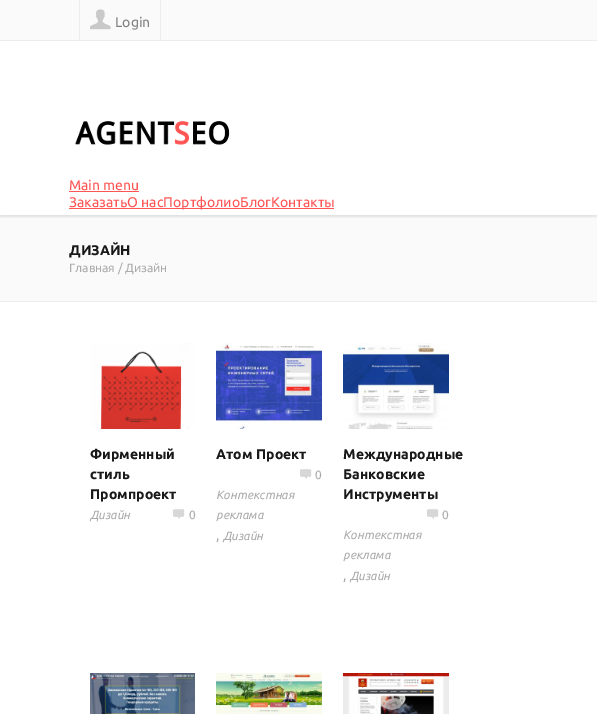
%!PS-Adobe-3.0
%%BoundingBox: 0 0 597 714
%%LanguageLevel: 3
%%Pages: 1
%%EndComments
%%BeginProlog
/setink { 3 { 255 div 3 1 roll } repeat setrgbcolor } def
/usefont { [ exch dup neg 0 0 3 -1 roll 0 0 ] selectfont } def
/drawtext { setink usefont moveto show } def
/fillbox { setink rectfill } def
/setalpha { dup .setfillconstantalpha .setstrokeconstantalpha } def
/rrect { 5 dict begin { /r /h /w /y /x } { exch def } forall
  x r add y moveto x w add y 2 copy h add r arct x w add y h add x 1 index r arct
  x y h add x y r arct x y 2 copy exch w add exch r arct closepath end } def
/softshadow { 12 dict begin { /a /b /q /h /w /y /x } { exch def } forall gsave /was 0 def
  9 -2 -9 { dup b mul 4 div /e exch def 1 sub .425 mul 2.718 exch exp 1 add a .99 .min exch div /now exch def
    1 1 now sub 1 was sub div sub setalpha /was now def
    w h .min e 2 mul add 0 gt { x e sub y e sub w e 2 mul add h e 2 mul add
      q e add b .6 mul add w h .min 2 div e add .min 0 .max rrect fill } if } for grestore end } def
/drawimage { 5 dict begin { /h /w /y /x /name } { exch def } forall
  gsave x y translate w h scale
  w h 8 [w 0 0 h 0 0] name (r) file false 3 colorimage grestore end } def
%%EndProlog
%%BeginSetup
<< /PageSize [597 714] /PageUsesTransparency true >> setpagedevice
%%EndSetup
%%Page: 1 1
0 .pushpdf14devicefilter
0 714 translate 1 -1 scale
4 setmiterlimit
0 0 597 714 255 255 255 fillbox
0 0 597 40 250 250 250 fillbox
0 40 597 1 237 237 237 fillbox
160 0 1 40 237 237 237 fillbox
79 0 1 40 237 237 237 fillbox
(assets/img1.rgb) 90 9 21 21 drawimage
(Login) 115 27 /Ubuntu-Regular 14 127 127 127 drawtext
0 215 597 86 250 250 250 fillbox
gsave
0 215 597 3 rectclip
0 0 0 setink
0 43 597 174 0 1 0.1 softshadow
grestore
(assets/img2.rgb) 75 121 155 24 drawimage
(Main menu) 69 190 /Ubuntu-Regular 14 255 85 85 drawtext
69 191 70 1 255 85 85 fillbox
69 208 265 1 255 85 85 fillbox
(ЗаказатьО насПортфолиоБлогКонтакты) 69 207 /Ubuntu-Regular 14 255 85 85 drawtext
0 301 597 1 237 237 237 fillbox
(ДИЗАЙН) 69 255 /Ubuntu-Bold 14 25 25 25 drawtext
(Главная / Дизайн) 69 272 /Ubuntu-Regular 12 171 171 171 drawtext
(assets/img3.rgb) 90 343 105 86 drawimage
(Фирменный) 90 459 /Ubuntu-Bold 14 25 25 25 drawtext
(стиль) 90 479 /Ubuntu-Bold 14 25 25 25 drawtext
(Промпроект) 90 499 /Ubuntu-Bold 14 25 25 25 drawtext
(Дизайн) 90 519 /Ubuntu-Italic 12 171 171 171 drawtext
(assets/img4.rgb) 173 509 12 10 drawimage
(0) 189 519 /Ubuntu-Regular 12 171 171 171 drawtext
(assets/img5.rgb) 216 343 106 86 drawimage
(Атом Проект) 216 459 /Ubuntu-Bold 14 25 25 25 drawtext
(assets/img4.rgb) 300 469 12 10 drawimage
(0) 315 479 /Ubuntu-Regular 12 171 171 171 drawtext
(Контекстная) 216 499 /Ubuntu-Italic 12 171 171 171 drawtext
(реклама) 216 519 /Ubuntu-Italic 12 171 171 171 drawtext
(,) 216 540 /Ubuntu-Regular 14 171 171 171 drawtext
(Дизайн) 223 540 /Ubuntu-Italic 12 171 171 171 drawtext
(assets/img6.rgb) 343 343 106 86 drawimage
(Международные) 343 459 /Ubuntu-Bold 14 25 25 25 drawtext
(Банковские) 343 479 /Ubuntu-Bold 14 25 25 25 drawtext
(Инструменты) 343 499 /Ubuntu-Bold 14 25 25 25 drawtext
(assets/img4.rgb) 427 509 12 10 drawimage
(0) 442 519 /Ubuntu-Regular 12 171 171 171 drawtext
(Контекстная) 343 539 /Ubuntu-Italic 12 171 171 171 drawtext
(реклама) 343 559 /Ubuntu-Italic 12 171 171 171 drawtext
(,) 343 580 /Ubuntu-Regular 14 171 171 171 drawtext
(Дизайн) 350 580 /Ubuntu-Italic 12 171 171 171 drawtext
(assets/img7.rgb) 90 673 105 41 drawimage
(assets/img8.rgb) 216 673 106 41 drawimage
(assets/img9.rgb) 343 673 106 41 drawimage
.poppdf14devicefilter showpage
%%EOF
